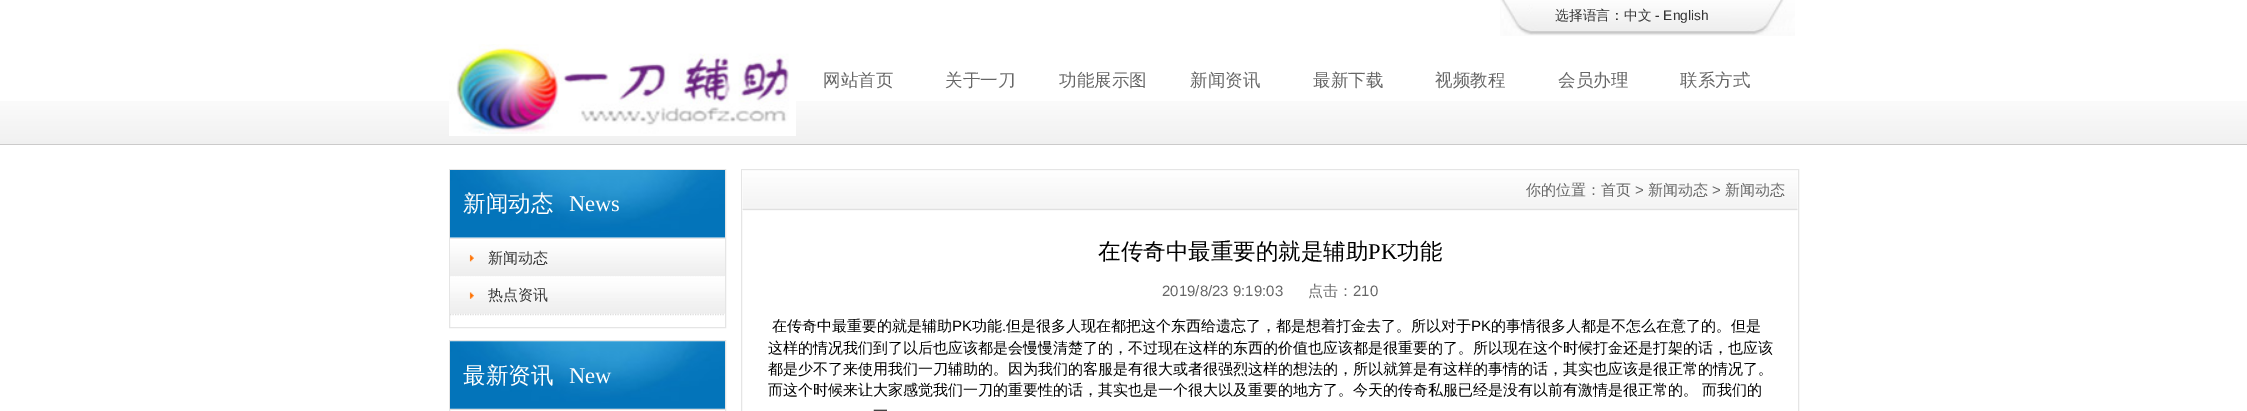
%!PS-Adobe-3.0
%%BoundingBox: 0 0 2247 411
%%LanguageLevel: 3
%%Pages: 1
%%EndComments
%%BeginProlog
/setink { 3 { 255 div 3 1 roll } repeat setrgbcolor } def
/usefont { [ exch dup neg 0 0 3 -1 roll 0 0 ] selectfont } def
/drawtext { setink usefont moveto show } def
/fillbox { setink rectfill } def
/drawimage { 5 dict begin { /h /w /y /x /name } { exch def } forall
  gsave x y translate w h scale
  w h 8 [w 0 0 h 0 0] name (r) file false 3 colorimage grestore end } def
%%EndProlog
%%BeginSetup
<< /PageSize [2247 411] >> setpagedevice
%%EndSetup
%%Page: 1 1
0 411 translate 1 -1 scale
4 setmiterlimit
0 0 2247 411 255 255 255 fillbox
(assets/img1.rgb) 1500 0 295 36 drawimage
(选择语言：中文) 1555 20 /WenQuanYiZenHei-Medium 13.75 51 51 51 drawtext
(- English) 1655 20 /LiberationSans-Regular 13.75 51 51 51 drawtext
(assets/img2.rgb) 0 101 2247 43 drawimage
0 144 2247 1 203 202 202 fillbox
(assets/img3.rgb) 449 44 347 92 drawimage
(网站首页) 823 86 /WenQuanYiZenHei-Medium 17.5 102 102 102 drawtext
(关于一刀) 945 86 /WenQuanYiZenHei-Medium 17.5 102 102 102 drawtext
(功能展示图) 1059 86 /WenQuanYiZenHei-Medium 17.5 102 102 102 drawtext
(新闻资讯) 1190 86 /WenQuanYiZenHei-Medium 17.5 102 102 102 drawtext
(最新下载) 1313 86 /WenQuanYiZenHei-Medium 17.5 102 102 102 drawtext
(视频教程) 1435 86 /WenQuanYiZenHei-Medium 17.5 102 102 102 drawtext
(会员办理) 1558 86 /WenQuanYiZenHei-Medium 17.5 102 102 102 drawtext
(联系方式) 1680 86 /WenQuanYiZenHei-Medium 17.5 102 102 102 drawtext
229 229 229 setink
449.5 169.5 276 158 rectstroke
(assets/img4.rgb) 450 170 275 68 drawimage
450 238 275 1 221 221 221 fillbox
(新闻动态) 463 211 /WenQuanYiZenHei-Medium 22.5 255 255 255 drawtext
(News) 569 211 /LiberationSerif-Regular 22.5 255 255 255 drawtext
(assets/img5.rgb) 450 238 275 39 drawimage
(assets/img6.rgb) 469 254 5 8 drawimage
221 221 221 setink
1.2 setlinewidth
[1.25 1.25] 0 setdash
450 277 moveto 725 277 lineto stroke
(新闻动态) 488 263 /WenQuanYiZenHei-Medium 15 51 51 51 drawtext
(assets/img7.rgb) 450 276 275 38 drawimage
(assets/img8.rgb) 469 292 5 7 drawimage
221 221 221 setink
450 314.5 moveto 725 314.5 lineto stroke
(热点资讯) 488 300 /WenQuanYiZenHei-Medium 15 51 51 51 drawtext
229 229 229 setink
1 setlinewidth
[] 0 setdash
449.5 340.5 276 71 rectstroke
(assets/img9.rgb) 450 341 275 68 drawimage
450 409 275 1 221 221 221 fillbox
(最新资讯) 463 383 /WenQuanYiZenHei-Medium 22.5 255 255 255 drawtext
(New) 569 383 /LiberationSerif-Regular 22.5 255 255 255 drawtext
229 229 229 setink
741.5 169.5 1057 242 rectstroke
(assets/img10.rgb) 742 170 1056 41 drawimage
(你的位置：首页) 1526 195 /WenQuanYiZenHei-Medium 15 102 102 102 drawtext
(>) 1635 195 /LiberationSans-Regular 15 102 102 102 drawtext
(新闻动态) 1648 195 /WenQuanYiZenHei-Medium 15 102 102 102 drawtext
(>) 1712 195 /LiberationSans-Regular 15 102 102 102 drawtext
(新闻动态) 1725 195 /WenQuanYiZenHei-Medium 15 102 102 102 drawtext
(在传奇中最重要的就是辅助) 1098 259 /WenQuanYiZenHei-Medium 22.5 0 0 0 drawtext
(PK) 1368 259 /LiberationSerif-Regular 22.5 0 0 0 drawtext
(功能) 1397 259 /WenQuanYiZenHei-Medium 22.5 0 0 0 drawtext
(2019/8/23 9:19:03) 1162 296 /LiberationSans-Regular 15 102 102 102 drawtext
(点击：) 1308 296 /WenQuanYiZenHei-Medium 15 102 102 102 drawtext
(210) 1353 296 /LiberationSans-Regular 15 102 102 102 drawtext
(在传奇中最重要的就是辅助) 772 331 /WenQuanYiZenHei-Medium 15 0 0 0 drawtext
(PK) 952 331 /LiberationSans-Regular 15 0 0 0 drawtext
(功能) 972 331 /WenQuanYiZenHei-Medium 15 0 0 0 drawtext
(.) 1002 331 /LiberationSans-Regular 15 0 0 0 drawtext
(但是很多人现在都把这个东西给遗忘了，都是想着打金去了。所以对于) 1006 331 /WenQuanYiZenHei-Medium 15 0 0 0 drawtext
(PK) 1471 331 /LiberationSans-Regular 15 0 0 0 drawtext
(的事情很多人都是不怎么在意了的。但是) 1491 331 /WenQuanYiZenHei-Medium 15 0 0 0 drawtext
(这样的情况我们到了以后也应该都是会慢慢清楚了的，不过现在这样的东西的价值也应该都是很重要的了。所以现在这个时候打金还是打架的话，也应该) 768 353 /WenQuanYiZenHei-Medium 15 0 0 0 drawtext
(都是少不了来使用我们一刀辅助的。因为我们的客服是有很大或者很强烈这样的想法的，所以就算是有这样的事情的话，其实也应该是很正常的情况了。) 768 374 /WenQuanYiZenHei-Medium 15 0 0 0 drawtext
(而这个时候来让大家感觉我们一刀的重要性的话，其实也是一个很大以及重要的地方了。今天的传奇私服已经是没有以前有激情是很正常的。 而我们的) 768 395 /WenQuanYiZenHei-Medium 15 0 0 0 drawtext
(一) 873 416 /WenQuanYiZenHei-Medium 15 0 0 0 drawtext
showpage
%%EOF
